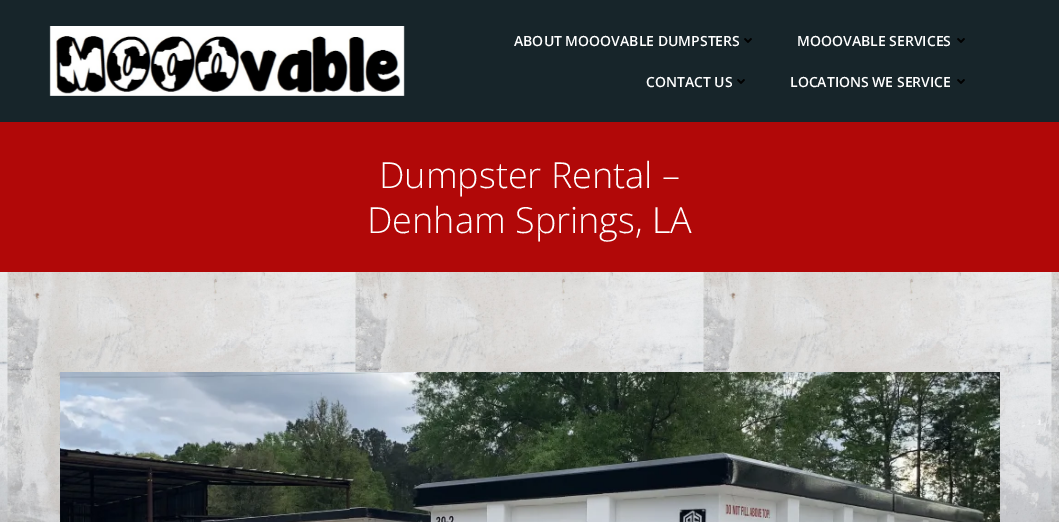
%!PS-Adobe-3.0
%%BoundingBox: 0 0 1059 522
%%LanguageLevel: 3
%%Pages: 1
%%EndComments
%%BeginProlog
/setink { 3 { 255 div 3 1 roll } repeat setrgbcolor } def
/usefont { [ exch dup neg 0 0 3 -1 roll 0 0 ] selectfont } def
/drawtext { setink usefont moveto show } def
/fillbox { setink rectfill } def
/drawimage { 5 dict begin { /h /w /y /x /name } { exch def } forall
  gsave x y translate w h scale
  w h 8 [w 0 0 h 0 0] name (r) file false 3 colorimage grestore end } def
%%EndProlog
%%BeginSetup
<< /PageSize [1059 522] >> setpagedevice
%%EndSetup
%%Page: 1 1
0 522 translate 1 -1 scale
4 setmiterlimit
0 0 1059 522 255 255 255 fillbox
(assets/img1.rgb) 0 272 1059 250 drawimage
0 0 1059 122 23 37 42 fillbox
(assets/img2.rgb) 49 26 356 70 drawimage
(ABOUT MOOOVABLE DUMPSTERS) 514 46 /OpenSans-SemiBold 14 255 255 255 drawtext
(assets/img3.rgb) 744 38 8 5 drawimage
(MOOOVABLE SERVICES) 797 46 /OpenSans-SemiBold 14 255 255 255 drawtext
(assets/img3.rgb) 957 38 8 5 drawimage
(CONTACT US) 646 87 /OpenSans-SemiBold 14 255 255 255 drawtext
(assets/img3.rgb) 737 79 8 5 drawimage
(LOCATIONS WE SERVICE) 790 87 /OpenSans-SemiBold 14 255 255 255 drawtext
(assets/img3.rgb) 957 79 8 5 drawimage
0 122 1059 150 177 8 8 fillbox
(Dumpster Rental –) 379 188 /OpenSans-Light 36 255 255 255 drawtext
(Denham Springs, LA) 367 233 /OpenSans-Light 36 255 255 255 drawtext
(assets/img4.rgb) 60 372 940 150 drawimage
showpage
%%EOF
